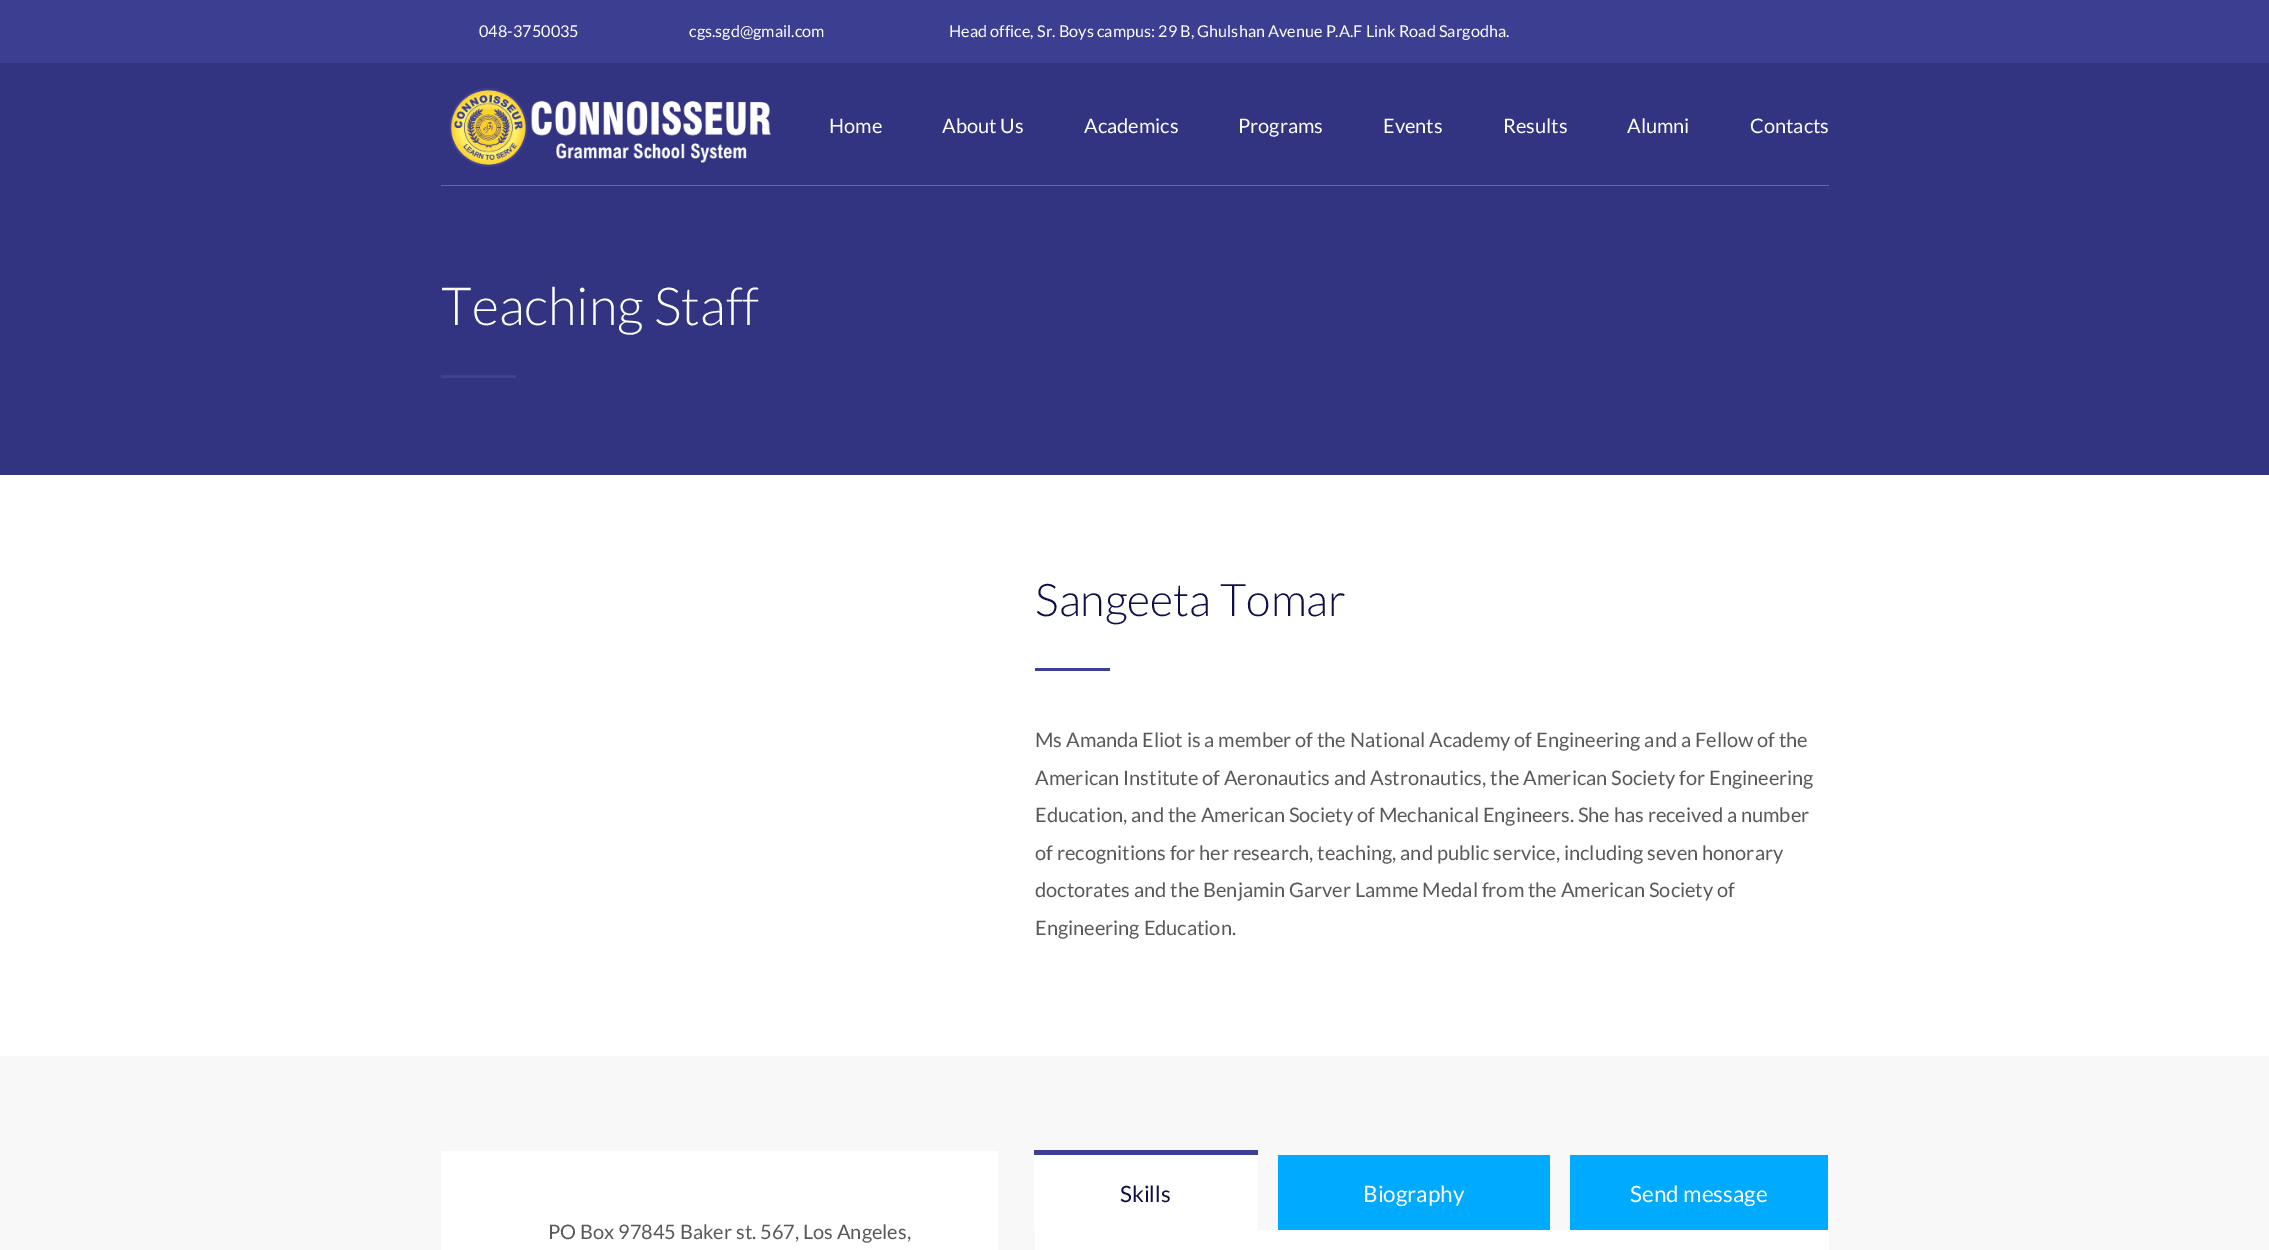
%!PS-Adobe-3.0
%%BoundingBox: 0 0 2269 1250
%%LanguageLevel: 3
%%Pages: 1
%%EndComments
%%BeginProlog
/setink { 3 { 255 div 3 1 roll } repeat setrgbcolor } def
/usefont { [ exch dup neg 0 0 3 -1 roll 0 0 ] selectfont } def
/drawtext { setink usefont moveto show } def
/fillbox { setink rectfill } def
/drawimage { 5 dict begin { /h /w /y /x /name } { exch def } forall
  gsave x y translate w h scale
  w h 8 [w 0 0 h 0 0] name (r) file false 3 colorimage grestore end } def
%%EndProlog
%%BeginSetup
<< /PageSize [2269 1250] >> setpagedevice
%%EndSetup
%%Page: 1 1
0 1250 translate 1 -1 scale
4 setmiterlimit
0 0 2269 1250 248 248 248 fillbox
0 0 2269 63 60 62 146 fillbox
(048-3750035) 479 37 /Lato-Regular 16.25 255 255 255 drawtext
(cgs.sgd@gmail.com) 689 37 /Lato-Regular 16.25 255 255 255 drawtext
(Head office, Sr. Boys campus: 29 B, Ghulshan Avenue P.A.F Link Road Sargodha.) 949 37 /Lato-Regular 16.25 255 255 255 drawtext
0 63 2269 412 50 52 130 fillbox
(assets/img1.rgb) 449 88 323 79 drawimage
(Home) 829 133 /Lato-Regular 20 255 255 255 drawtext
(About Us) 942 133 /Lato-Regular 20 255 255 255 drawtext
(Academics) 1084 133 /Lato-Regular 20 255 255 255 drawtext
(Programs) 1238 133 /Lato-Regular 20 255 255 255 drawtext
(Events) 1383 133 /Lato-Regular 20 255 255 255 drawtext
(Results) 1503 133 /Lato-Regular 20 255 255 255 drawtext
(Alumni) 1627 133 /Lato-Regular 20 255 255 255 drawtext
(Contacts) 1750 133 /Lato-Regular 20 255 255 255 drawtext
441 185 1388 1 101 103 161 fillbox
(Teaching Staff) 441 325 /Lato-Light 52.5 255 255 255 drawtext
441 375 75 3 62 64 149 fillbox
0 475 2269 581 255 255 255 fillbox
(Sangeeta Tomar) 1035 616 /Lato-Light 45 14 14 72 drawtext
1035 668 75 3 62 64 149 fillbox
(Ms Amanda Eliot is a member of the National Academy of Engineering and a Fellow of the) 1035 747 /Lato-Regular 20 89 89 89 drawtext
(American Institute of Aeronautics and Astronautics, the American Society for Engineering) 1035 785 /Lato-Regular 20 89 89 89 drawtext
(Education, and the American Society of Mechanical Engineers. She has received a number) 1035 822 /Lato-Regular 20 89 89 89 drawtext
(of recognitions for her research, teaching, and public service, including seven honorary) 1035 860 /Lato-Regular 20 89 89 89 drawtext
(doctorates and the Benjamin Garver Lamme Medal from the American Society of) 1035 897 /Lato-Regular 20 89 89 89 drawtext
(Engineering Education.) 1035 935 /Lato-Regular 20 89 89 89 drawtext
1034 1155 224 75 255 255 255 fillbox
1034 1150 224 5 62 64 149 fillbox
(Skills) 1120 1202 /Lato-Regular 22.5 14 14 72 drawtext
1278 1155 272 75 0 170 255 fillbox
(Biography) 1363 1202 /Lato-Regular 22.5 255 255 255 drawtext
1570 1155 258 75 0 170 255 fillbox
(Send message) 1630 1202 /Lato-Regular 22.5 255 255 255 drawtext
1035 1230 794 20 255 255 255 fillbox
441 1151 557 99 255 255 255 fillbox
(PO Box 97845 Baker st. 567, Los Angeles,) 548 1239 /Lato-Regular 20 89 89 89 drawtext
showpage
%%EOF
